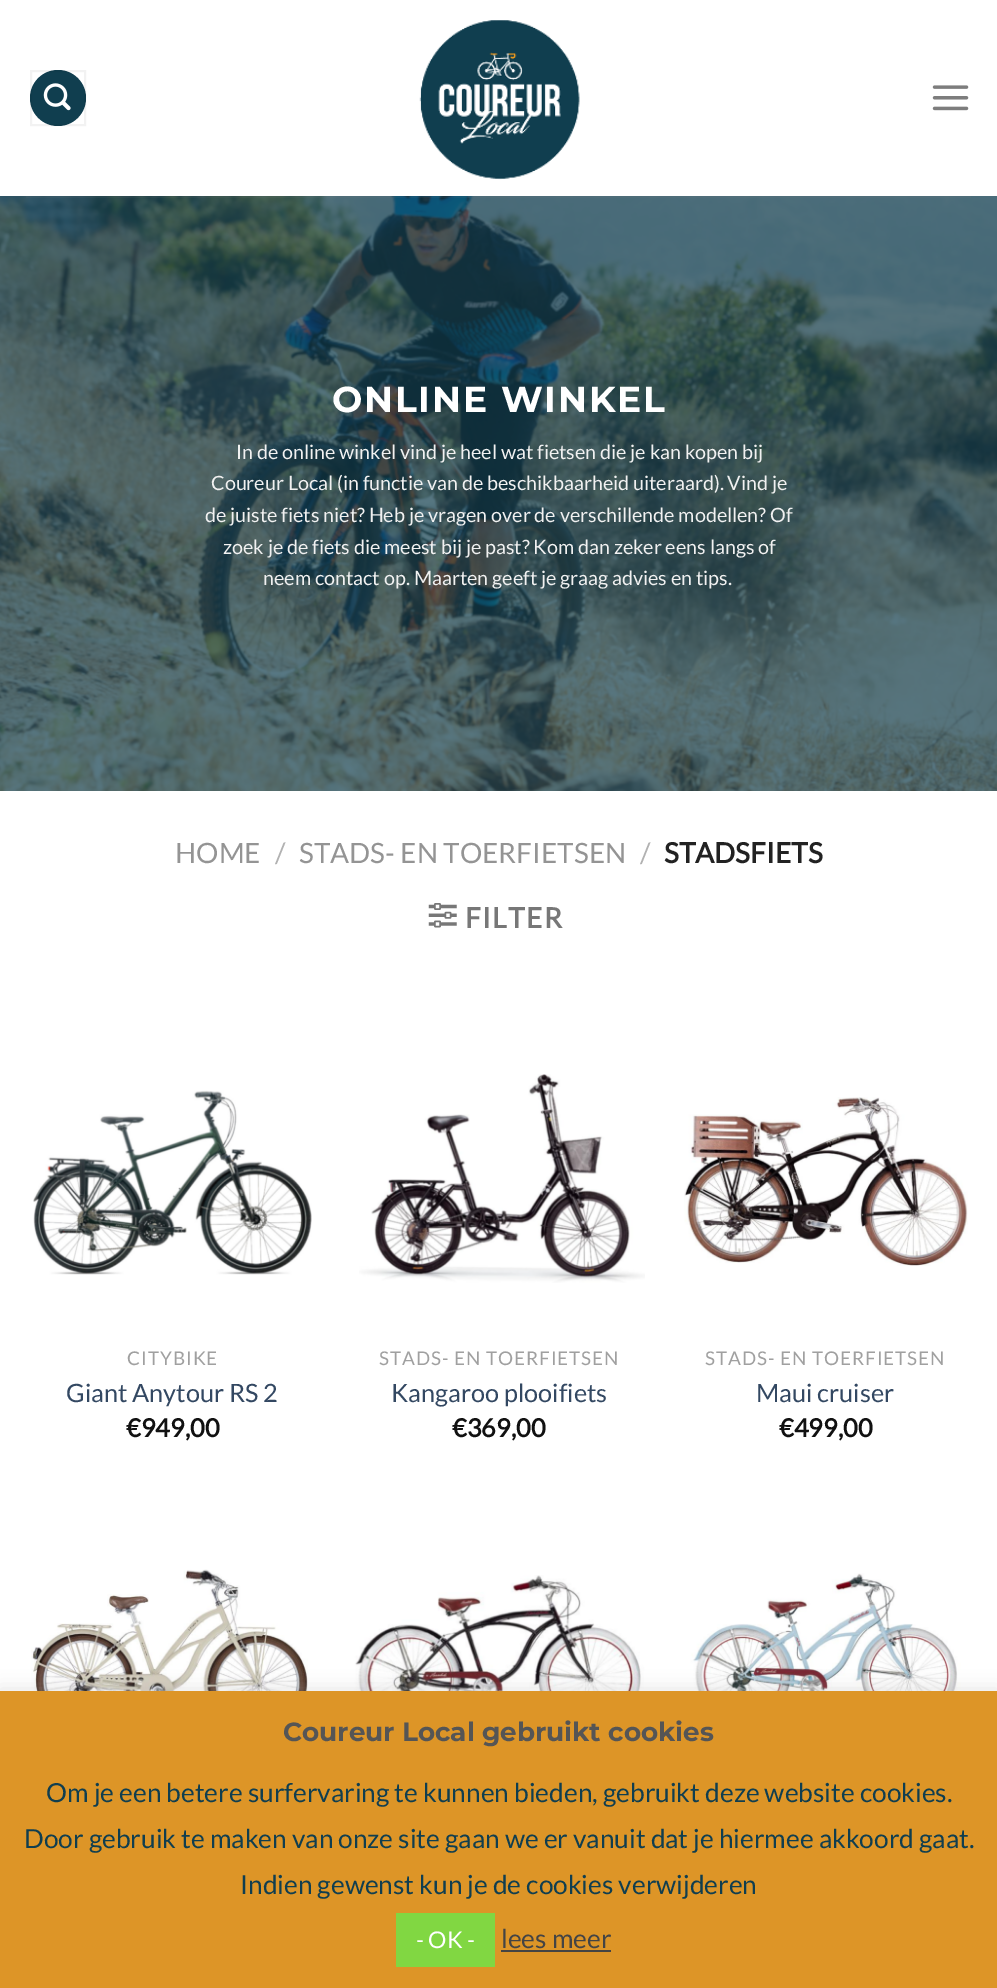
%!PS-Adobe-3.0
%%BoundingBox: 0 0 997 1988
%%LanguageLevel: 3
%%Pages: 1
%%EndComments
%%BeginProlog
/setink { 3 { 255 div 3 1 roll } repeat setrgbcolor } def
/usefont { [ exch dup neg 0 0 3 -1 roll 0 0 ] selectfont } def
/drawtext { setink usefont moveto show } def
/fillbox { setink rectfill } def
/setalpha { dup .setfillconstantalpha .setstrokeconstantalpha } def
/disc { newpath 0 360 arc closepath } def
/rrect { 5 dict begin { /r /h /w /y /x } { exch def } forall
  x r add y moveto x w add y 2 copy h add r arct x w add y h add x 1 index r arct
  x y h add x y r arct x y 2 copy exch w add exch r arct closepath end } def
/softshadow { 12 dict begin { /a /b /q /h /w /y /x } { exch def } forall gsave /was 0 def
  9 -2 -9 { dup b mul 4 div /e exch def 1 sub .425 mul 2.718 exch exp 1 add a .99 .min exch div /now exch def
    1 1 now sub 1 was sub div sub setalpha /was now def
    w h .min e 2 mul add 0 gt { x e sub y e sub w e 2 mul add h e 2 mul add
      q e add b .6 mul add w h .min 2 div e add .min 0 .max rrect fill } if } for grestore end } def
/drawimage { 5 dict begin { /h /w /y /x /name } { exch def } forall
  gsave x y translate w h scale
  w h 8 [w 0 0 h 0 0] name (r) file false 3 colorimage grestore end } def
%%EndProlog
%%BeginSetup
<< /PageSize [997 1988] /PageUsesTransparency true >> setpagedevice
%%EndSetup
%%Page: 1 1
0 .pushpdf14devicefilter
0 1988 translate 1 -1 scale
4 setmiterlimit
0 0 997 1988 255 255 255 fillbox
16 62 79 setink
58 98 28 disc fill
0.05 setalpha
0 0 0 setink
2 setlinewidth
31 71 54 54 rectstroke
1 setalpha
(assets/img1.rgb) 43 83 28 28 drawimage
(assets/img2.rgb) 419 20 161 160 drawimage
(assets/img3.rgb) 932 85 37 26 drawimage
(assets/img4.rgb) 0 196 997 595 drawimage
0.1 setalpha
26 196 945 2 119 119 119 fillbox
/Montserrat-Thin 36 usefont
1 setalpha
255 255 255 setink
332 412 moveto 1.75 0 (ONLINE WINKEL) ashow
(In de online winkel vind je heel wat fietsen die je kan kopen bij) 236 459 /Lato-Regular 19.75 241 241 241 drawtext
(Coureur Local \(in functie van de beschikbaarheid uiteraard\). Vind je) 211 490 /Lato-Regular 19.75 241 241 241 drawtext
(de juiste fiets niet? Heb je vragen over de verschillende modellen? Of) 205 522 /Lato-Regular 19.75 241 241 241 drawtext
(zoek je de fiets die meest bij je past? Kom dan zeker eens langs of) 223 554 /Lato-Regular 19.75 241 241 241 drawtext
(neem contact op. Maarten geeft je graag advies en tips.) 263 585 /Lato-Regular 19.75 241 241 241 drawtext
(HOME) 175 863 /Lato-Regular 28 148 148 148 drawtext
(/) 275 863 /Lato-Regular 28 178 178 178 drawtext
(STADS- EN TOERFIETSEN) 299 863 /Lato-Regular 28 148 148 148 drawtext
(/) 640 863 /Lato-Regular 28 178 178 178 drawtext
(STADSFIETS) 664 863 /Lato-Bold 28 34 34 34 drawtext
(assets/img5.rgb) 428 903 29 25 drawimage
119 119 119 setink
465 928 moveto 1.5 0 (FILTER) ashow
(assets/img6.rgb) 33 1090 279 185 drawimage
/Lato-Regular 18.9 usefont
160 160 160 setink
127 1365 moveto 0.95 0 (CITYBIKE) ashow
(Giant Anytour RS 2) 66 1402 /Lato-Regular 25.25 51 72 98 drawtext
(€949,00) 126 1437 /Lato-Bold 25.25 17 17 17 drawtext
(assets/img7.rgb) 359 1074 286 209 drawimage
/Lato-Regular 18.9 usefont
160 160 160 setink
379 1365 moveto 0.95 0 (STADS- EN TOERFIETSEN) ashow
(Kangaroo plooifiets) 391 1402 /Lato-Regular 25.25 51 72 98 drawtext
(€369,00) 452 1437 /Lato-Bold 25.25 17 17 17 drawtext
(assets/img8.rgb) 684 1097 284 169 drawimage
/Lato-Regular 18.9 usefont
160 160 160 setink
705 1365 moveto 0.95 0 (STADS- EN TOERFIETSEN) ashow
(Maui cruiser) 756 1402 /Lato-Regular 25.25 51 72 98 drawtext
(€499,00) 779 1437 /Lato-Bold 25.25 17 17 17 drawtext
(assets/img9.rgb) 31 1569 277 122 drawimage
(assets/img10.rgb) 352 1575 294 116 drawimage
(assets/img11.rgb) 680 1573 291 118 drawimage
172 171 171 setink
0 1689 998 297 0 9 0.3 softshadow
0 1691 997 297 221 149 39 fillbox
(Coureur Local gebruikt cookies) 283 1741 /Montserrat-Thin 26.25 85 85 85 drawtext
(Om je een betere surfervaring te kunnen bieden, gebruikt deze website cookies.) 46 1802 /Lato-Regular 26.25 16 62 79 drawtext
(Door gebruik te maken van onze site gaan we er vanuit dat je hiermee akkoord gaat.) 24 1848 /Lato-Regular 26.25 16 62 79 drawtext
(Indien gewenst kun je de cookies verwijderen) 240 1894 /Lato-Regular 26.25 16 62 79 drawtext
396 1913 99 54 129 215 66 fillbox
(- OK -) 416 1948 /Lato-Regular 23 255 255 255 drawtext
(lees meer) 501 1948 /Lato-Regular 26.25 68 68 68 drawtext
501 1950 110 2 68 68 68 fillbox
.poppdf14devicefilter showpage
%%EOF
